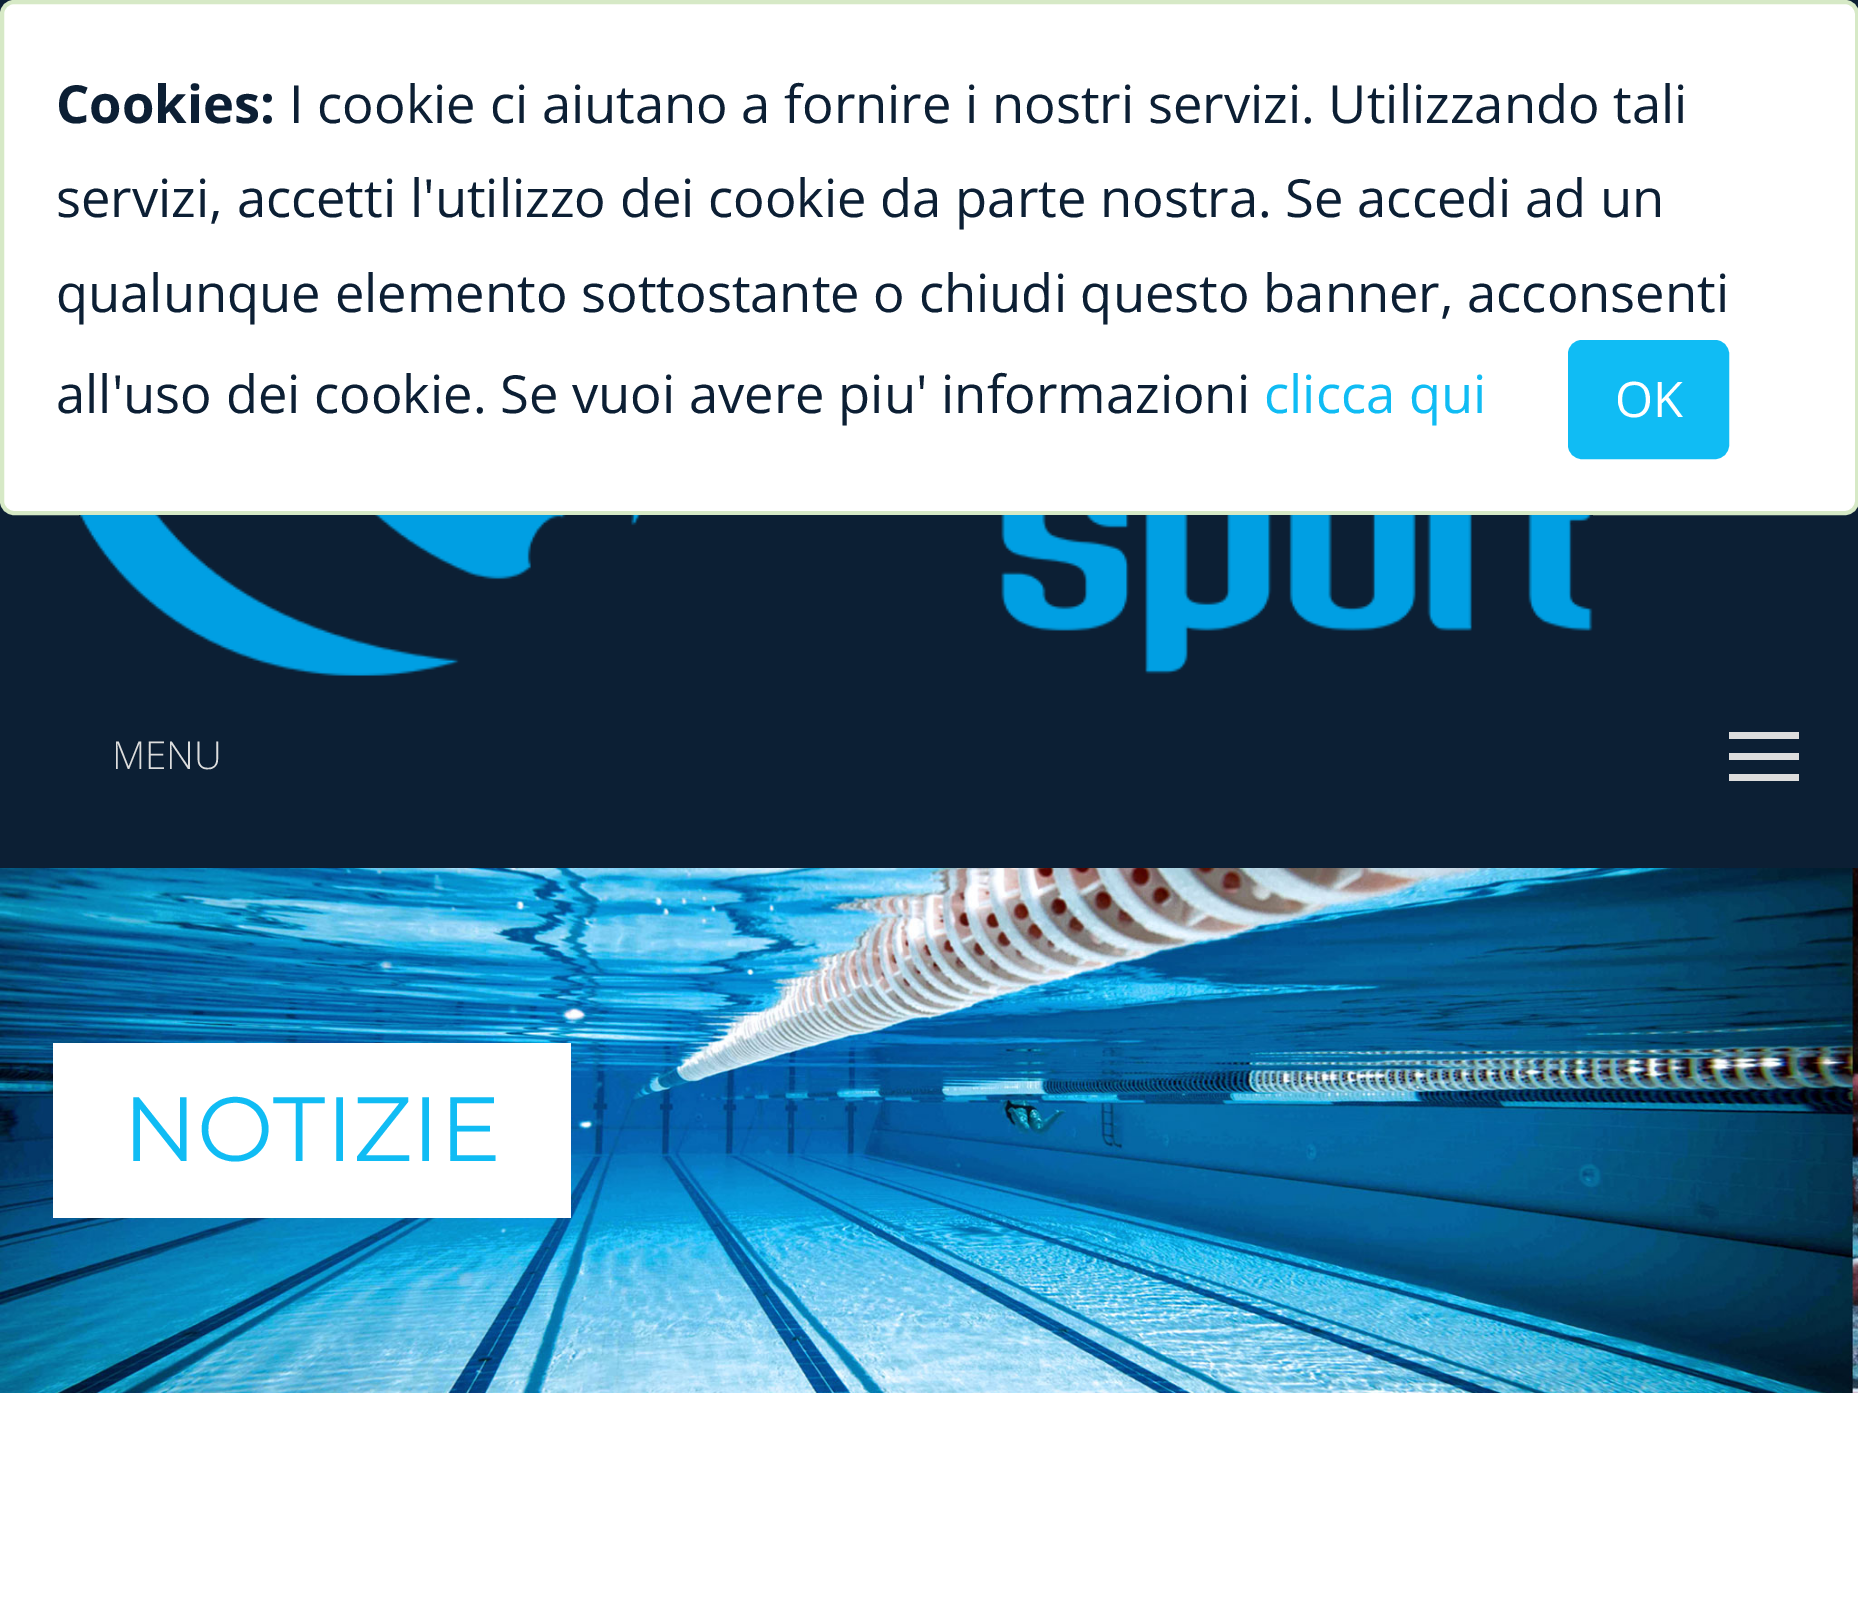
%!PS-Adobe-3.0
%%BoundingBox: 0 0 1858 1610
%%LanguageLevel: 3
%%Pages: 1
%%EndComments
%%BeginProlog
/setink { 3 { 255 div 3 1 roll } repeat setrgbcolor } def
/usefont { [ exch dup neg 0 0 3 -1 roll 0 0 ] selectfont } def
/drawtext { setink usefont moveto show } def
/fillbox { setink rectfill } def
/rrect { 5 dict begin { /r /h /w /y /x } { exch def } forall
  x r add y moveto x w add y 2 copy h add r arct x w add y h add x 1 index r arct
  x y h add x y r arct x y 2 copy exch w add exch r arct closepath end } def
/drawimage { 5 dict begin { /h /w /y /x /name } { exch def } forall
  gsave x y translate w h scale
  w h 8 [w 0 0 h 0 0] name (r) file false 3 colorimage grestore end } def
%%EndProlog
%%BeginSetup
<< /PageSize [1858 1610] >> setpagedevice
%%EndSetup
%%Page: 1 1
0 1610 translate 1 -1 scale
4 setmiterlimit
0 0 1858 1610 255 255 255 fillbox
0 0 1858 868 12 31 52 fillbox
255 255 255 setink
2 2 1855 511 12 rrect gsave fill grestore
214 233 198 setink
4 setlinewidth
stroke
(Cookies:) 56 123 /OpenSans-Bold 52.5 12 31 52 drawtext
(I cookie ci aiutano a fornire i nostri servizi. Utilizzando tali) 289 123 /OpenSans-Regular 52.5 12 31 52 drawtext
(servizi, accetti l'utilizzo dei cookie da parte nostra. Se accedi ad un) 56 217 /OpenSans-Regular 52.5 12 31 52 drawtext
(qualunque elemento sottostante o chiudi questo banner, acconsenti) 56 312 /OpenSans-Regular 52.5 12 31 52 drawtext
(all'uso dei cookie. Se vuoi avere piu' informazioni) 56 413 /OpenSans-Regular 52.5 12 31 52 drawtext
(clicca qui) 1264 413 /OpenSans-Regular 52.5 16 188 244 drawtext
1570 342 157 115 12 rrect gsave fill grestore
stroke
(OK) 1615 417 /OpenSans-Regular 49 255 255 255 drawtext
(assets/img1.rgb) 79 515 1514 161 drawimage
1729 732 70 7 221 221 221 fillbox
(MENU) 112 769 /OpenSans-Light 38.5 221 221 221 drawtext
1729 753 70 7 221 221 221 fillbox
1729 774 70 7 221 221 221 fillbox
(assets/img2.rgb) 0 868 1858 525 drawimage
53 1043 518 175 255 255 255 fillbox
(NOTIZIE) 123 1161 /Montserrat-Regular 91 16 188 244 drawtext
showpage
%%EOF
